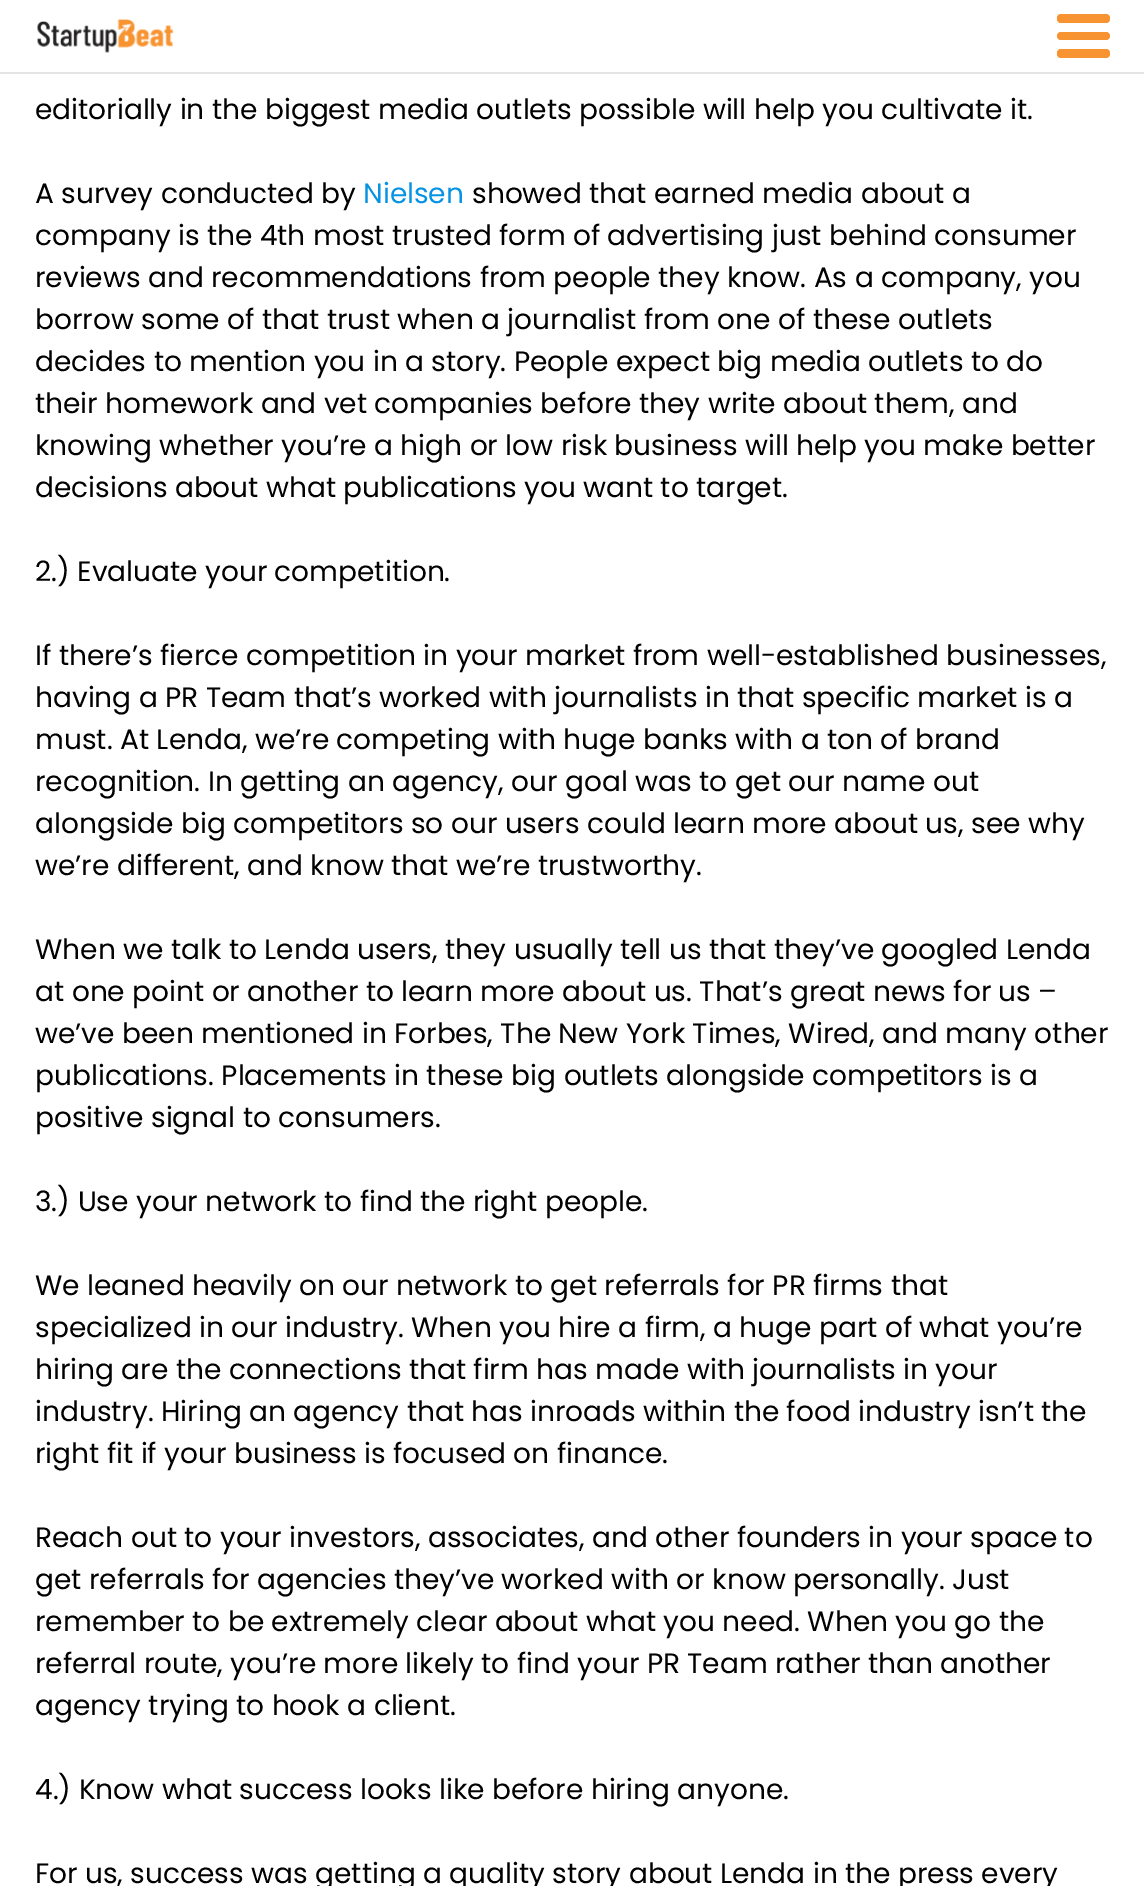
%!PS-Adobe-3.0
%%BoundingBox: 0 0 1144 1886
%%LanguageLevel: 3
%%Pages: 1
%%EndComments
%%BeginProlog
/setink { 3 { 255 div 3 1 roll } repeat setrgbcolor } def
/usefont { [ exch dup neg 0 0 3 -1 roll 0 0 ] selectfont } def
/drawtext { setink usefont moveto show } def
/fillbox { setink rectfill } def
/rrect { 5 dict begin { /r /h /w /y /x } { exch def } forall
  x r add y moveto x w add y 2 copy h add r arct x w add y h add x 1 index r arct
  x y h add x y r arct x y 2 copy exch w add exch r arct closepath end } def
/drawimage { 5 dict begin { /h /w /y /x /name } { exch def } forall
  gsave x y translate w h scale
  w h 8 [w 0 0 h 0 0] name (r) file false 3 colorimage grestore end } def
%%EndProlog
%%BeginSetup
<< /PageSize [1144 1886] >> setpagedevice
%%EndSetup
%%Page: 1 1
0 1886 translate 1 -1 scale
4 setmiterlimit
0 0 1144 1886 255 255 255 fillbox
0 72 1144 2 228 228 231 fillbox
(assets/img1.rgb) 37 19 137 34 drawimage
248 147 49 setink
1057 14 53 9 4 rrect fill
1057 32 53 8 4 rrect fill
1057 49 53 9 4 rrect fill
(editorially in the biggest media outlets possible will help you cultivate it.) 35 119 /Poppins-Regular 28 0 0 0 drawtext
(A survey conducted by) 35 203 /Poppins-Regular 28 0 0 0 drawtext
(Nielsen) 363 203 /Poppins-Regular 28 6 147 227 drawtext
(showed that earned media about a) 472 203 /Poppins-Regular 28 0 0 0 drawtext
(company is the 4th most trusted form of advertising just behind consumer) 35 245 /Poppins-Regular 28 0 0 0 drawtext
(reviews and recommendations from people they know. As a company, you) 35 287 /Poppins-Regular 28 0 0 0 drawtext
(borrow some of that trust when a journalist from one of these outlets) 35 329 /Poppins-Regular 28 0 0 0 drawtext
(decides to mention you in a story. People expect big media outlets to do) 35 371 /Poppins-Regular 28 0 0 0 drawtext
(their homework and vet companies before they write about them, and) 35 413 /Poppins-Regular 28 0 0 0 drawtext
(knowing whether you’re a high or low risk business will help you make better) 35 455 /Poppins-Regular 28 0 0 0 drawtext
(decisions about what publications you want to target.) 35 497 /Poppins-Regular 28 0 0 0 drawtext
(2.\) Evaluate your competition.) 35 581 /Poppins-Regular 28 0 0 0 drawtext
(If there’s fierce competition in your market from well-established businesses,) 35 665 /Poppins-Regular 28 0 0 0 drawtext
(having a PR Team that’s worked with journalists in that specific market is a) 35 707 /Poppins-Regular 28 0 0 0 drawtext
(must. At Lenda, we’re competing with huge banks with a ton of brand) 35 749 /Poppins-Regular 28 0 0 0 drawtext
(recognition. In getting an agency, our goal was to get our name out) 35 791 /Poppins-Regular 28 0 0 0 drawtext
(alongside big competitors so our users could learn more about us, see why) 35 833 /Poppins-Regular 28 0 0 0 drawtext
(we’re different, and know that we’re trustworthy.) 35 875 /Poppins-Regular 28 0 0 0 drawtext
(When we talk to Lenda users, they usually tell us that they’ve googled Lenda) 35 959 /Poppins-Regular 28 0 0 0 drawtext
(at one point or another to learn more about us. That’s great news for us –) 35 1001 /Poppins-Regular 28 0 0 0 drawtext
(we’ve been mentioned in Forbes, The New York Times, Wired, and many other) 35 1043 /Poppins-Regular 28 0 0 0 drawtext
(publications. Placements in these big outlets alongside competitors is a) 35 1085 /Poppins-Regular 28 0 0 0 drawtext
(positive signal to consumers.) 35 1127 /Poppins-Regular 28 0 0 0 drawtext
(3.\) Use your network to find the right people.) 35 1211 /Poppins-Regular 28 0 0 0 drawtext
(We leaned heavily on our network to get referrals for PR firms that) 35 1295 /Poppins-Regular 28 0 0 0 drawtext
(specialized in our industry. When you hire a firm, a huge part of what you’re) 35 1337 /Poppins-Regular 28 0 0 0 drawtext
(hiring are the connections that firm has made with journalists in your) 35 1379 /Poppins-Regular 28 0 0 0 drawtext
(industry. Hiring an agency that has inroads within the food industry isn’t the) 35 1421 /Poppins-Regular 28 0 0 0 drawtext
(right fit if your business is focused on finance.) 35 1463 /Poppins-Regular 28 0 0 0 drawtext
(Reach out to your investors, associates, and other founders in your space to) 35 1547 /Poppins-Regular 28 0 0 0 drawtext
(get referrals for agencies they’ve worked with or know personally. Just) 35 1589 /Poppins-Regular 28 0 0 0 drawtext
(remember to be extremely clear about what you need. When you go the) 35 1631 /Poppins-Regular 28 0 0 0 drawtext
(referral route, you’re more likely to find your PR Team rather than another) 35 1673 /Poppins-Regular 28 0 0 0 drawtext
(agency trying to hook a client.) 35 1715 /Poppins-Regular 28 0 0 0 drawtext
(4.\) Know what success looks like before hiring anyone.) 35 1799 /Poppins-Regular 28 0 0 0 drawtext
(For us, success was getting a quality story about Lenda in the press every) 35 1883 /Poppins-Regular 28 0 0 0 drawtext
showpage
%%EOF
